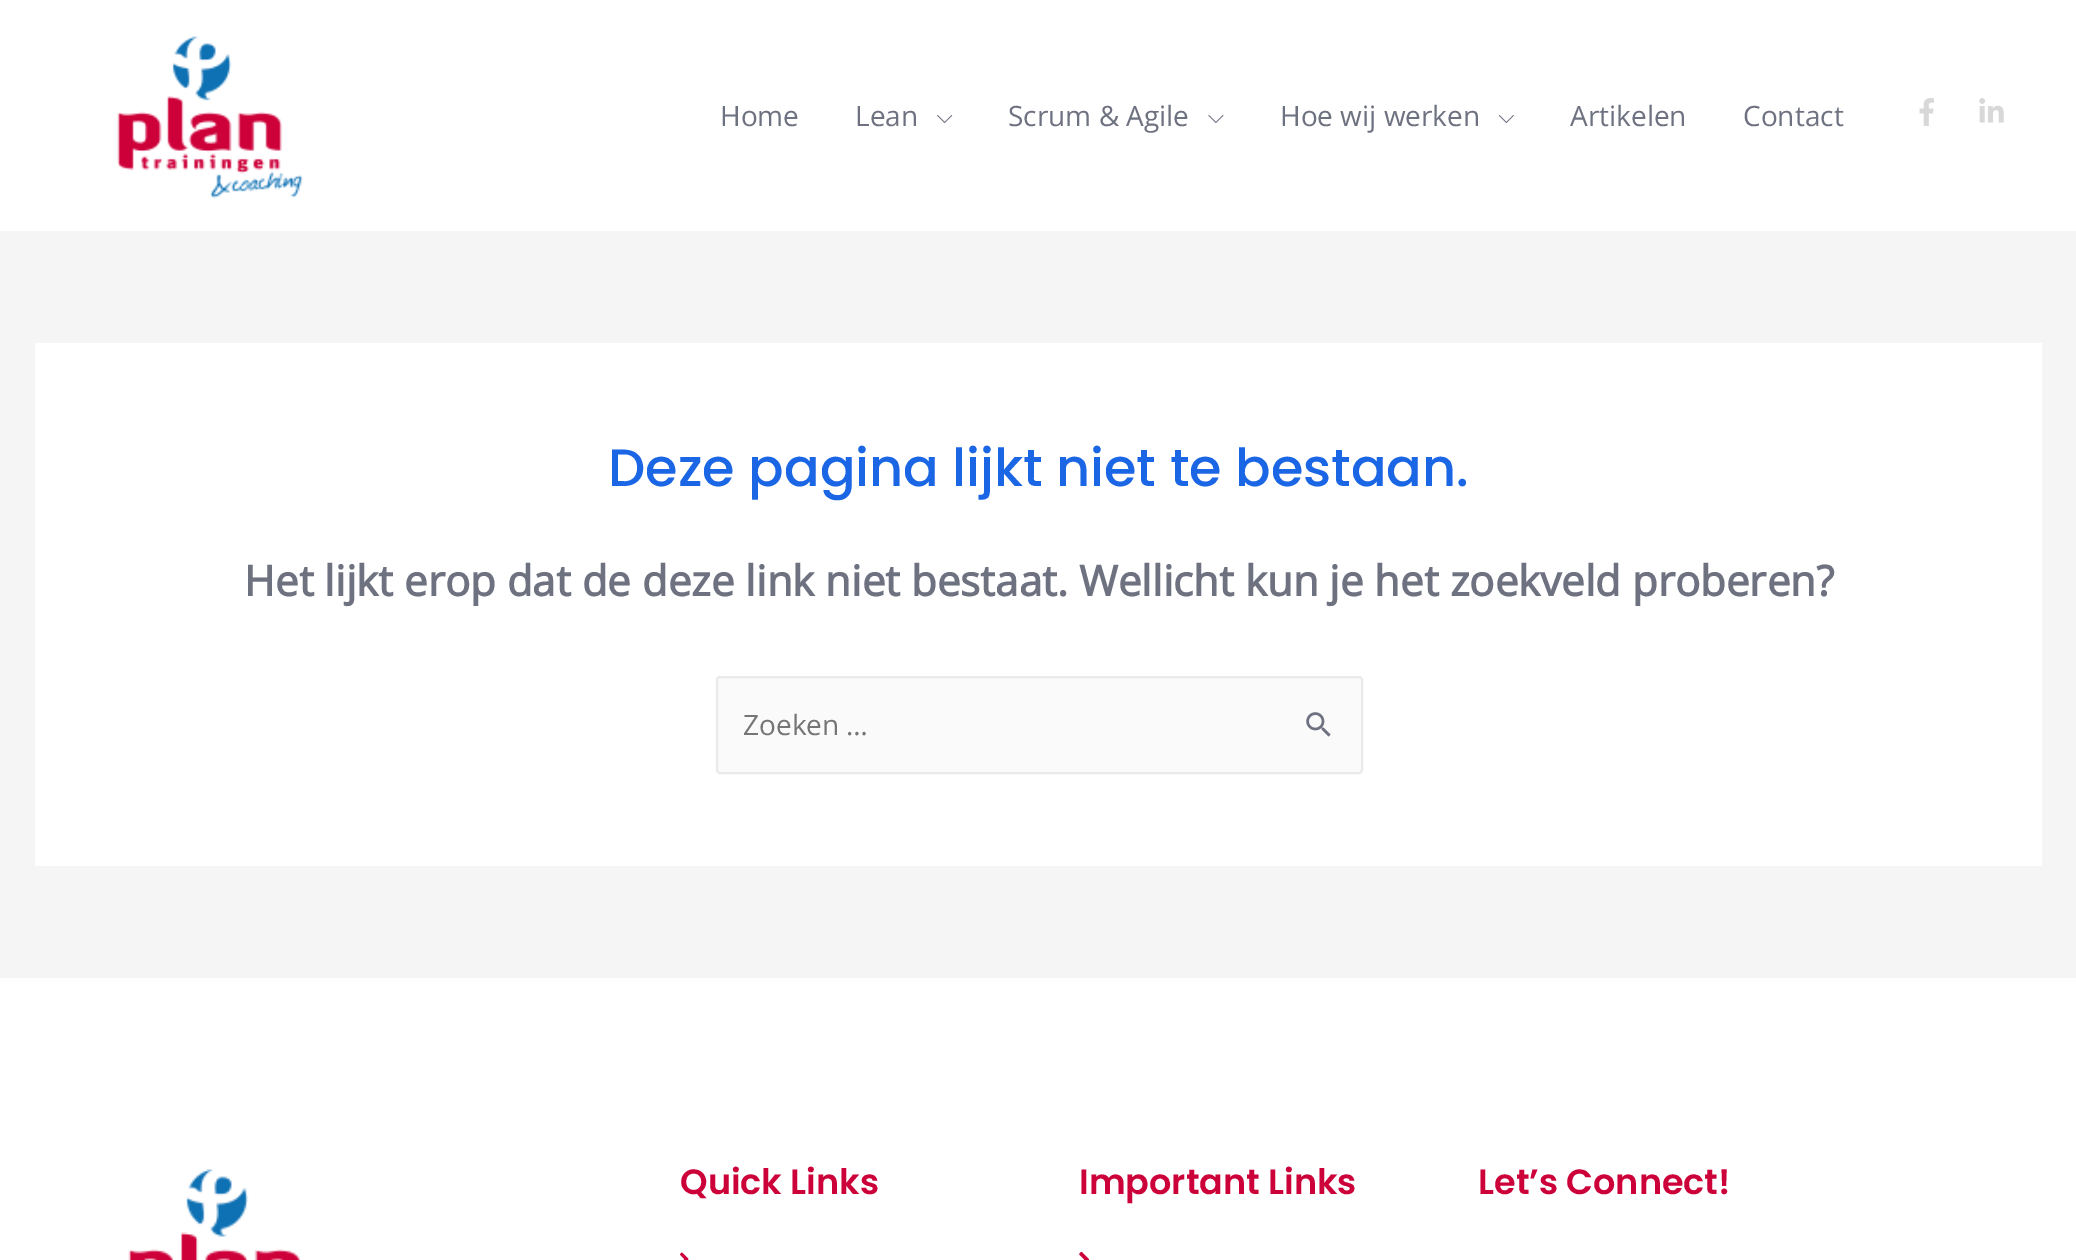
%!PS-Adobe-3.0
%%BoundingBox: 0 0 2076 1260
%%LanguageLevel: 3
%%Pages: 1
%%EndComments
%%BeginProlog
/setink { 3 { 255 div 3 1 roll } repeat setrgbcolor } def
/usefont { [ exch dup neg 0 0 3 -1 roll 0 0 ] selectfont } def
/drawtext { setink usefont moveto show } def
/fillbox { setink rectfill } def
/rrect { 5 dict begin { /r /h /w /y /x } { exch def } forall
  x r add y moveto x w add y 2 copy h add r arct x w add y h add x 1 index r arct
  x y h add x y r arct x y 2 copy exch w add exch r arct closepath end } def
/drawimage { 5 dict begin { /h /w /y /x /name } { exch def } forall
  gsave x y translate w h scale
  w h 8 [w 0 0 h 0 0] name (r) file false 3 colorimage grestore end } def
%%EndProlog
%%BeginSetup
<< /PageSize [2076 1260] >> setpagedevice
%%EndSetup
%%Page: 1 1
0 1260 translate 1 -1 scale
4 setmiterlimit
0 0 2076 1260 245 245 245 fillbox
0 0 2076 231 255 255 255 fillbox
(assets/img1.rgb) 117 36 186 163 drawimage
(Home) 720 126 /OpenSans-Regular 28 110 113 128 drawtext
(Lean) 855 126 /OpenSans-Regular 28 110 113 128 drawtext
(assets/img2.rgb) 937 115 16 8 drawimage
(Scrum & Agile) 1008 126 /OpenSans-Regular 28 110 113 128 drawtext
(assets/img3.rgb) 1208 115 16 8 drawimage
(Hoe wij werken) 1280 126 /OpenSans-Regular 28 110 113 128 drawtext
(assets/img4.rgb) 1498 115 16 8 drawimage
(Artikelen) 1570 126 /OpenSans-Regular 28 110 113 128 drawtext
(Contact) 1743 126 /OpenSans-Regular 28 110 113 128 drawtext
(assets/img5.rgb) 1919 98 15 28 drawimage
(assets/img6.rgb) 1979 98 25 25 drawimage
35 343 2007 523 255 255 255 fillbox
(Deze pagina lijkt niet te bestaan.) 608 486 /Poppins-Medium 52.5 27 102 229 drawtext
(Het lijkt erop dat de deze link niet bestaat. Wellicht kun je het zoekveld proberen?) 244 596 /OpenSans-Bold 42 110 113 128 drawtext
250 250 250 setink
717 677 645 96 3 rrect gsave fill grestore
234 234 234 setink
2 setlinewidth
stroke
(Zoeken …) 743 735 /OpenSans-Regular 28 117 117 117 drawtext
(assets/img7.rgb) 1306 712 25 25 drawimage
0 978 2076 282 255 255 255 fillbox
(assets/img8.rgb) 128 1169 172 91 drawimage
(Quick Links) 680 1194 /Poppins-SemiBold 35 204 1 58 drawtext
(assets/img9.rgb) 680 1252 9 8 drawimage
(Important Links) 1079 1194 /Poppins-SemiBold 35 204 1 58 drawtext
(assets/img10.rgb) 1079 1251 10 9 drawimage
(Let’s Connect!) 1478 1194 /Poppins-SemiBold 35 204 1 58 drawtext
showpage
%%EOF
